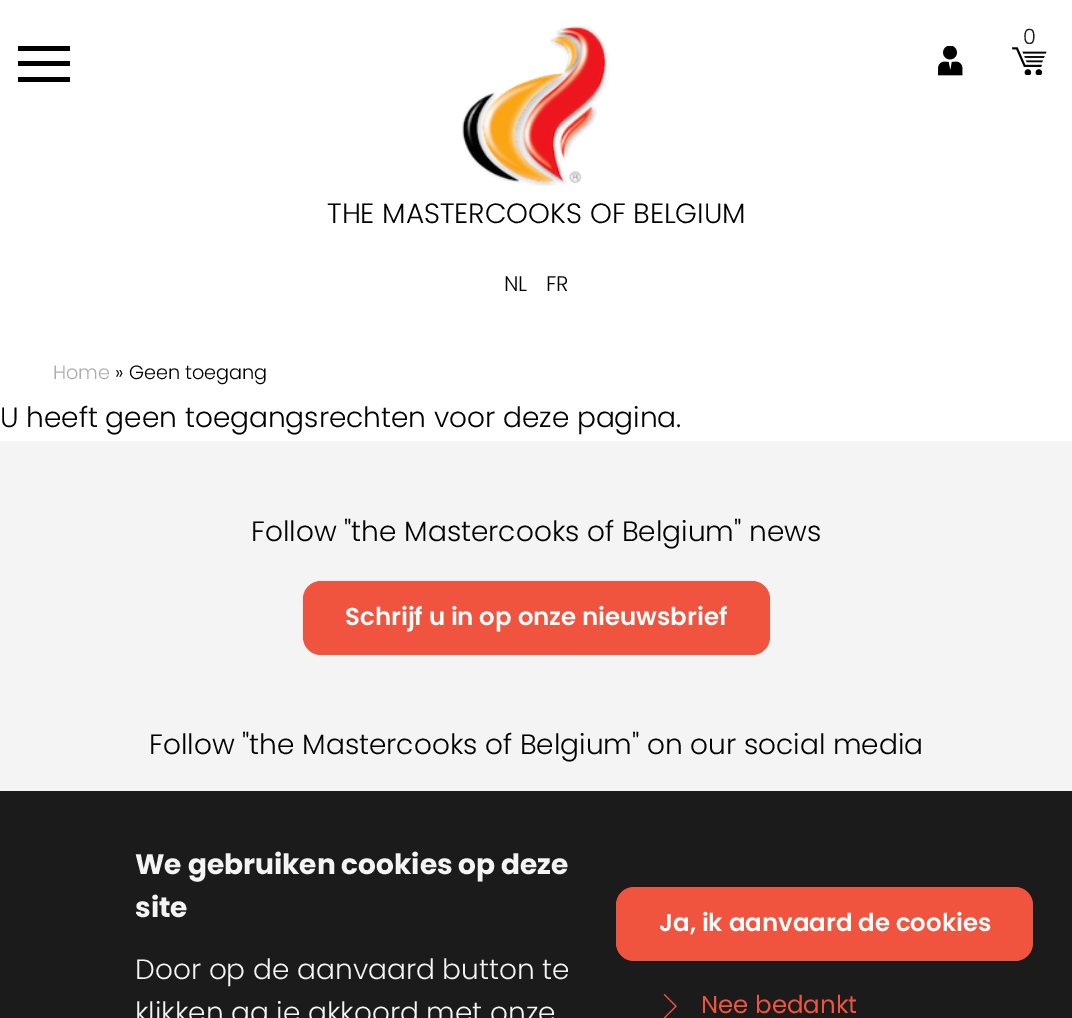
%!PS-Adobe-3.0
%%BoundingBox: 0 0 1072 1018
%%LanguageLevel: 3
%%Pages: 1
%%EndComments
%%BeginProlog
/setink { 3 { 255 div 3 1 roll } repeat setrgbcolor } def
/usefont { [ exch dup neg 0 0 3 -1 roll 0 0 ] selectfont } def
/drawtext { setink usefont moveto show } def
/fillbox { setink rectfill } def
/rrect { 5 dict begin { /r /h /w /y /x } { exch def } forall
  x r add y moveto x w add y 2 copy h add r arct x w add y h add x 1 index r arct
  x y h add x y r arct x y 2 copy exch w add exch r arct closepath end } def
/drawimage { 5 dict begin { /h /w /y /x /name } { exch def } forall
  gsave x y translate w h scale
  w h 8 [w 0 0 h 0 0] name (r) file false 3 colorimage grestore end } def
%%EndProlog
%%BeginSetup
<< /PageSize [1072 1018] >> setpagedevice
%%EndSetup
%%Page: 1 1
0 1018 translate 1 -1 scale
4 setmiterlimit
0 0 1072 1018 255 255 255 fillbox
(assets/img1.rgb) 1012 47 35 28 drawimage
(0) 1023 44 /Poppins-Light 21 27 27 27 drawtext
(assets/img2.rgb) 938 46 25 30 drawimage
18 46 52 5 0 0 0 fillbox
18 61 52 5 0 0 0 fillbox
18 77 52 5 0 0 0 fillbox
(assets/img3.rgb) 462 25 148 161 drawimage
(THE MASTERCOOKS OF BELGIUM) 327 223 /Poppins-Light 27.9 0 0 0 drawtext
(NL) 504 291 /Poppins-Light 21 0 0 0 drawtext
(FR) 546 291 /Poppins-Light 21 0 0 0 drawtext
(Home) 53 379 /Poppins-Light 19.25 172 172 172 drawtext
(» Geen toegang) 115 379 /Poppins-Light 19.25 0 0 0 drawtext
(U heeft geen toegangsrechten voor deze pagina.) 0 427 /Poppins-Light 28 0 0 0 drawtext
0 441 1072 350 244 244 244 fillbox
(Follow "the Mastercooks of Belgium" news) 251 541 /Poppins-Light 28 0 0 0 drawtext
240 84 62 setink
303 581 467 74 18 rrect fill
(Schrijf u in op onze nieuwsbrief) 345 625 /Poppins-SemiBold 24.5 255 255 255 drawtext
(Follow "the Mastercooks of Belgium" on our social media) 149 754 /Poppins-Light 28 0 0 0 drawtext
0 791 1072 227 27 27 27 fillbox
(We gebruiken cookies op deze) 135 874 /Poppins-Bold 28 244 244 244 drawtext
(site) 135 917 /Poppins-Bold 28 244 244 244 drawtext
(Door op de aanvaard button te) 135 979 /Poppins-Light 28 244 244 244 drawtext
(klikken ga je akkoord met onze) 135 1022 /Poppins-Light 28 244 244 244 drawtext
240 84 62 setink
616 887 417 74 18 rrect fill
(Ja, ik aanvaard de cookies) 659 931 /Poppins-SemiBold 24.5 255 255 255 drawtext
(assets/img4.rgb) 663 994 14 24 drawimage
(Nee bedankt) 701 1013 /Poppins-Regular 24.5 240 84 62 drawtext
showpage
%%EOF
